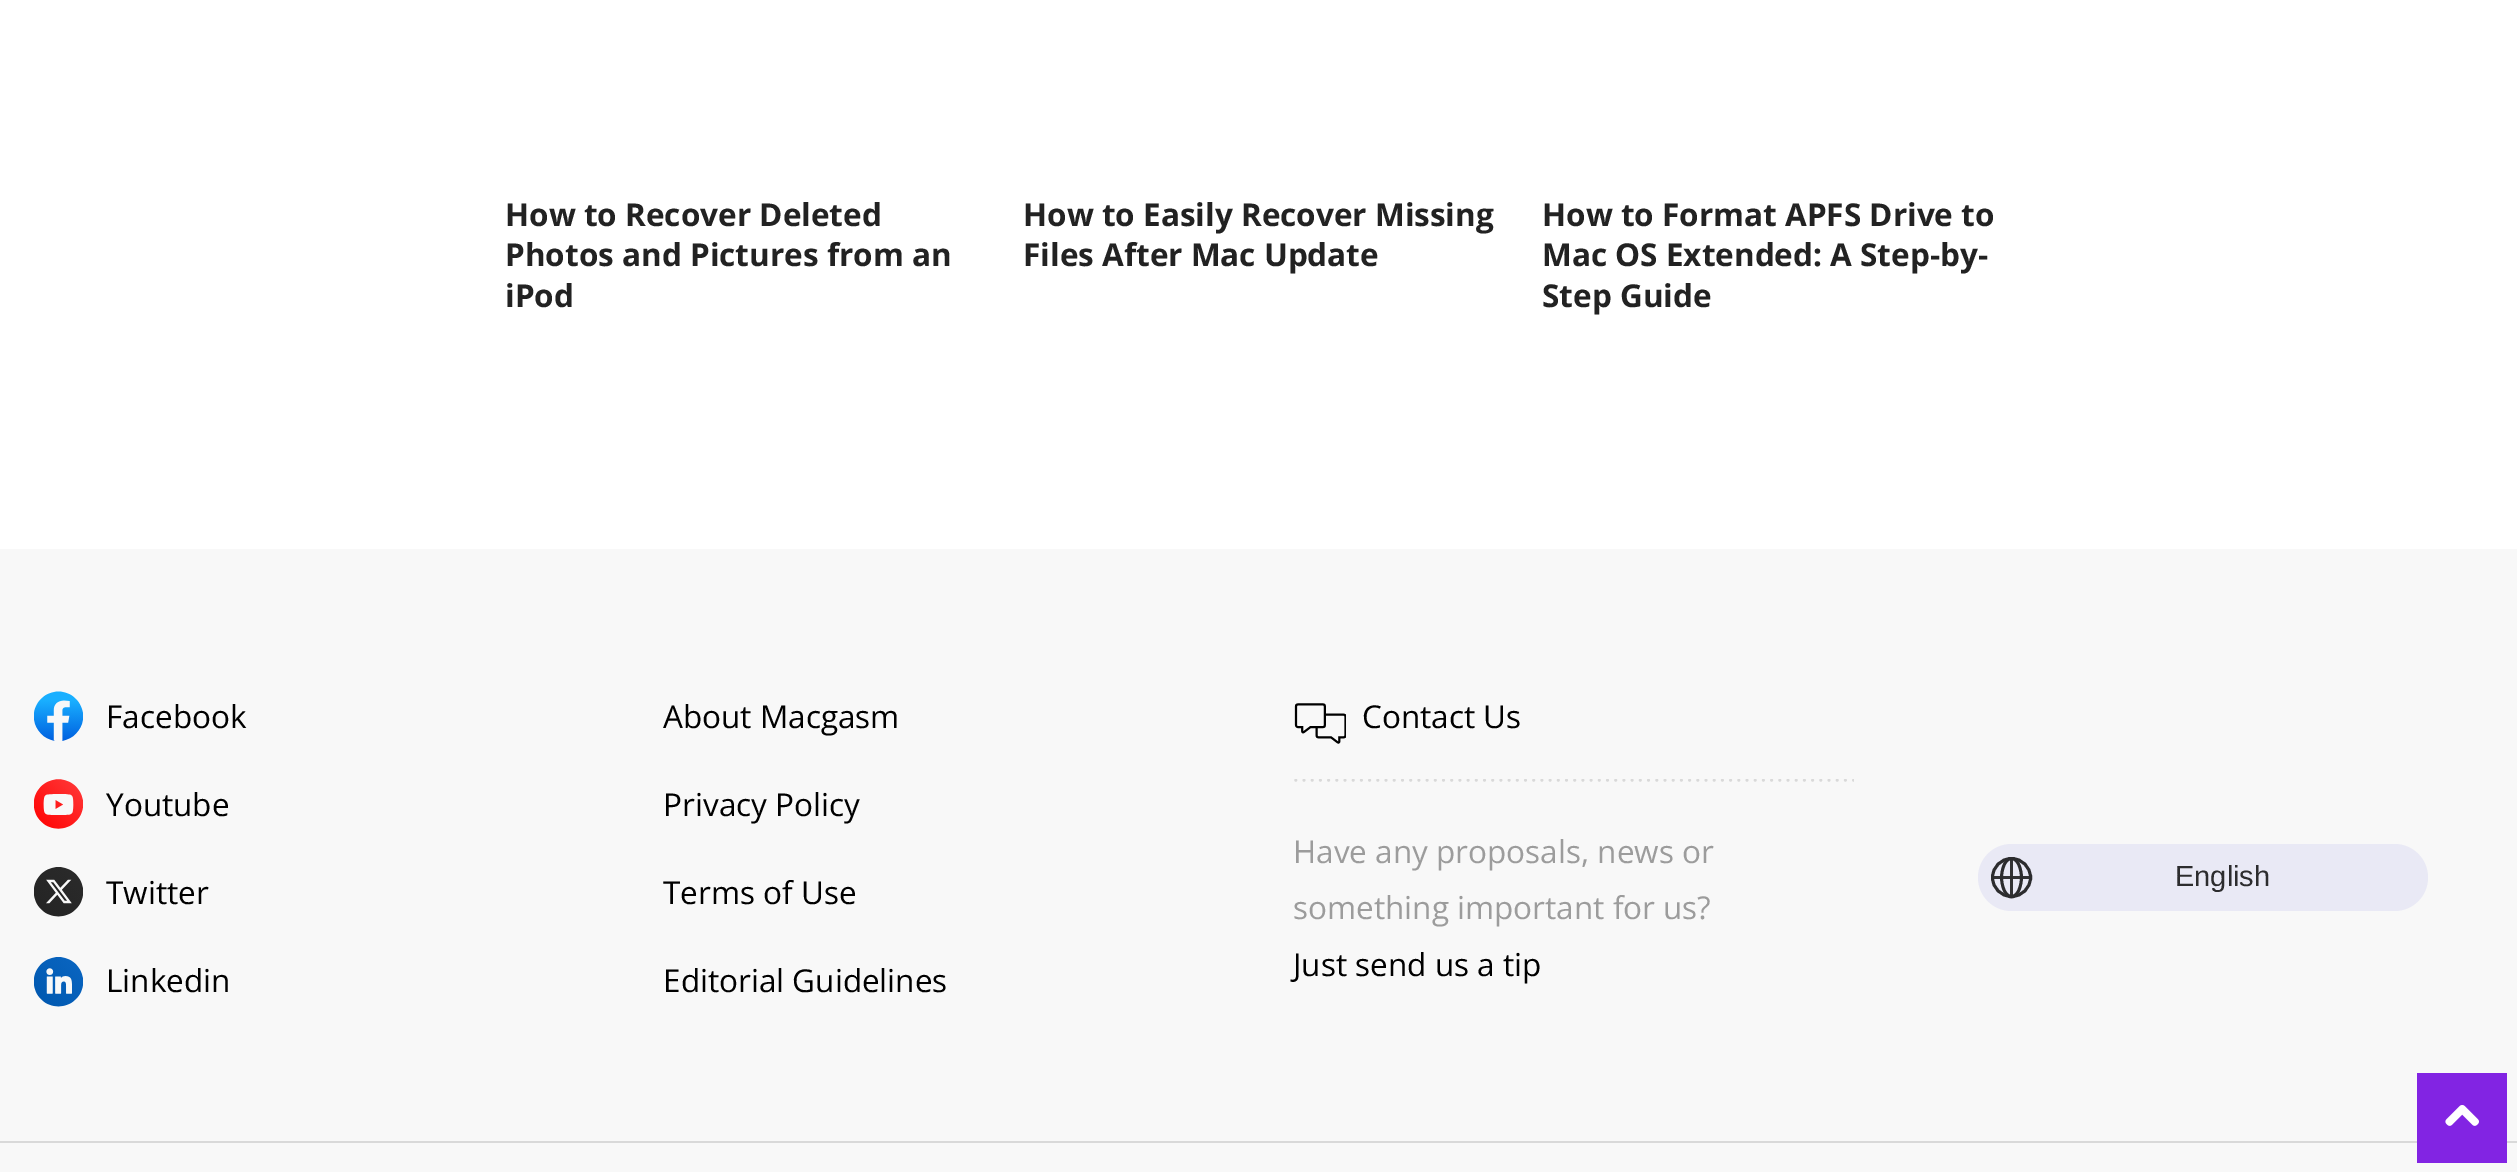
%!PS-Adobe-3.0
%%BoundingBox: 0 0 2517 1172
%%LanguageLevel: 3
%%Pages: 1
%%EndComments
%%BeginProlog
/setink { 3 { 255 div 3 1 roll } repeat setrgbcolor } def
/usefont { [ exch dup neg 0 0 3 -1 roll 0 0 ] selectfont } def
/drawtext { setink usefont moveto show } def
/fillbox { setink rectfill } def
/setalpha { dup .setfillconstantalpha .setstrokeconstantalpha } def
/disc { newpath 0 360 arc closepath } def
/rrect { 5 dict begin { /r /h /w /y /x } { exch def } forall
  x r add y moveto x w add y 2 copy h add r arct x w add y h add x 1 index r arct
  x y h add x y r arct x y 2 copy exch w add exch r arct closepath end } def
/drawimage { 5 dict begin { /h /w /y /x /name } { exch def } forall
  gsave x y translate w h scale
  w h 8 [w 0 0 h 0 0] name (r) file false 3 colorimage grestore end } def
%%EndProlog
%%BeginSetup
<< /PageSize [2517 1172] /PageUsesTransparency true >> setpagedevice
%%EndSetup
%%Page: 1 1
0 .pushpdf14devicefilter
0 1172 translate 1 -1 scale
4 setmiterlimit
0 0 2517 1172 255 255 255 fillbox
(How to Recover Deleted) 505 226 /OpenSans-Bold 31.5 34 34 34 drawtext
(Photos and Pictures from an) 505 266 /OpenSans-Bold 31.5 34 34 34 drawtext
(iPod) 505 307 /OpenSans-Bold 31.5 34 34 34 drawtext
(How to Easily Recover Missing) 1023 226 /OpenSans-Bold 31.5 34 34 34 drawtext
(Files After Mac Update) 1023 266 /OpenSans-Bold 31.5 34 34 34 drawtext
(How to Format APFS Drive to) 1542 226 /OpenSans-Bold 31.5 34 34 34 drawtext
(Mac OS Extended: A Step-by-) 1542 266 /OpenSans-Bold 31.5 34 34 34 drawtext
(Step Guide) 1542 307 /OpenSans-Bold 31.5 34 34 34 drawtext
0 549 2517 623 248 248 248 fillbox
(assets/img1.rgb) 34 691 49 50 drawimage
(Facebook) 106 728 /OpenSans-Regular 31.5 0 0 0 drawtext
(assets/img2.rgb) 34 779 49 50 drawimage
(Youtube) 106 816 /OpenSans-Regular 31.5 0 0 0 drawtext
(assets/img3.rgb) 34 867 49 50 drawimage
(Twitter) 106 904 /OpenSans-Regular 31.5 0 0 0 drawtext
(assets/img4.rgb) 34 957 49 50 drawimage
(Linkedin) 106 992 /OpenSans-Regular 31.5 0 0 0 drawtext
(About Macgasm) 663 728 /OpenSans-Regular 31.5 0 0 0 drawtext
(Privacy Policy) 663 816 /OpenSans-Regular 31.5 0 0 0 drawtext
(Terms of Use) 663 904 /OpenSans-Regular 31.5 0 0 0 drawtext
(Editorial Guidelines) 663 992 /OpenSans-Regular 31.5 0 0 0 drawtext
(assets/img5.rgb) 1294 779 560 3 drawimage
(assets/img6.rgb) 1294 703 52 41 drawimage
(Contact Us) 1362 728 /OpenSans-Regular 31.5 0 0 0 drawtext
(Have any proposals, news or) 1293 863 /OpenSans-Regular 31.5 156 156 156 drawtext
(something important for us?) 1293 919 /OpenSans-Regular 31.5 156 156 156 drawtext
(Just send us a tip) 1293 976 /OpenSans-Regular 31.5 0 0 0 drawtext
233 233 245 setink
1978 844 450 67 33.5 rrect fill
44 44 46 setink
2.9 setlinewidth
2011.5 877.5 19 disc stroke
2021.5 877.5 moveto 2021.5 883 2019 896.5 2011.5 896.5 curveto 2004 896.5 2001.5 883 2001.5 877.5 curveto 2001.5 872 2004 858.5 2011.5 858.5 curveto 2019 858.5 2021.5 872 2021.5 877.5 curveto closepath stroke
0.97 setalpha
1993 876 37 3 44 44 46 fillbox
2010 859 3 37 44 44 46 fillbox
1 setalpha
(English) 2175 886 /LiberationSans-Regular 29 44 44 46 drawtext
0 1141 2517 2 217 217 217 fillbox
2417 1073 90 90 130 36 227 fillbox
(assets/img7.rgb) 2445 1105 34 21 drawimage
.poppdf14devicefilter showpage
%%EOF
